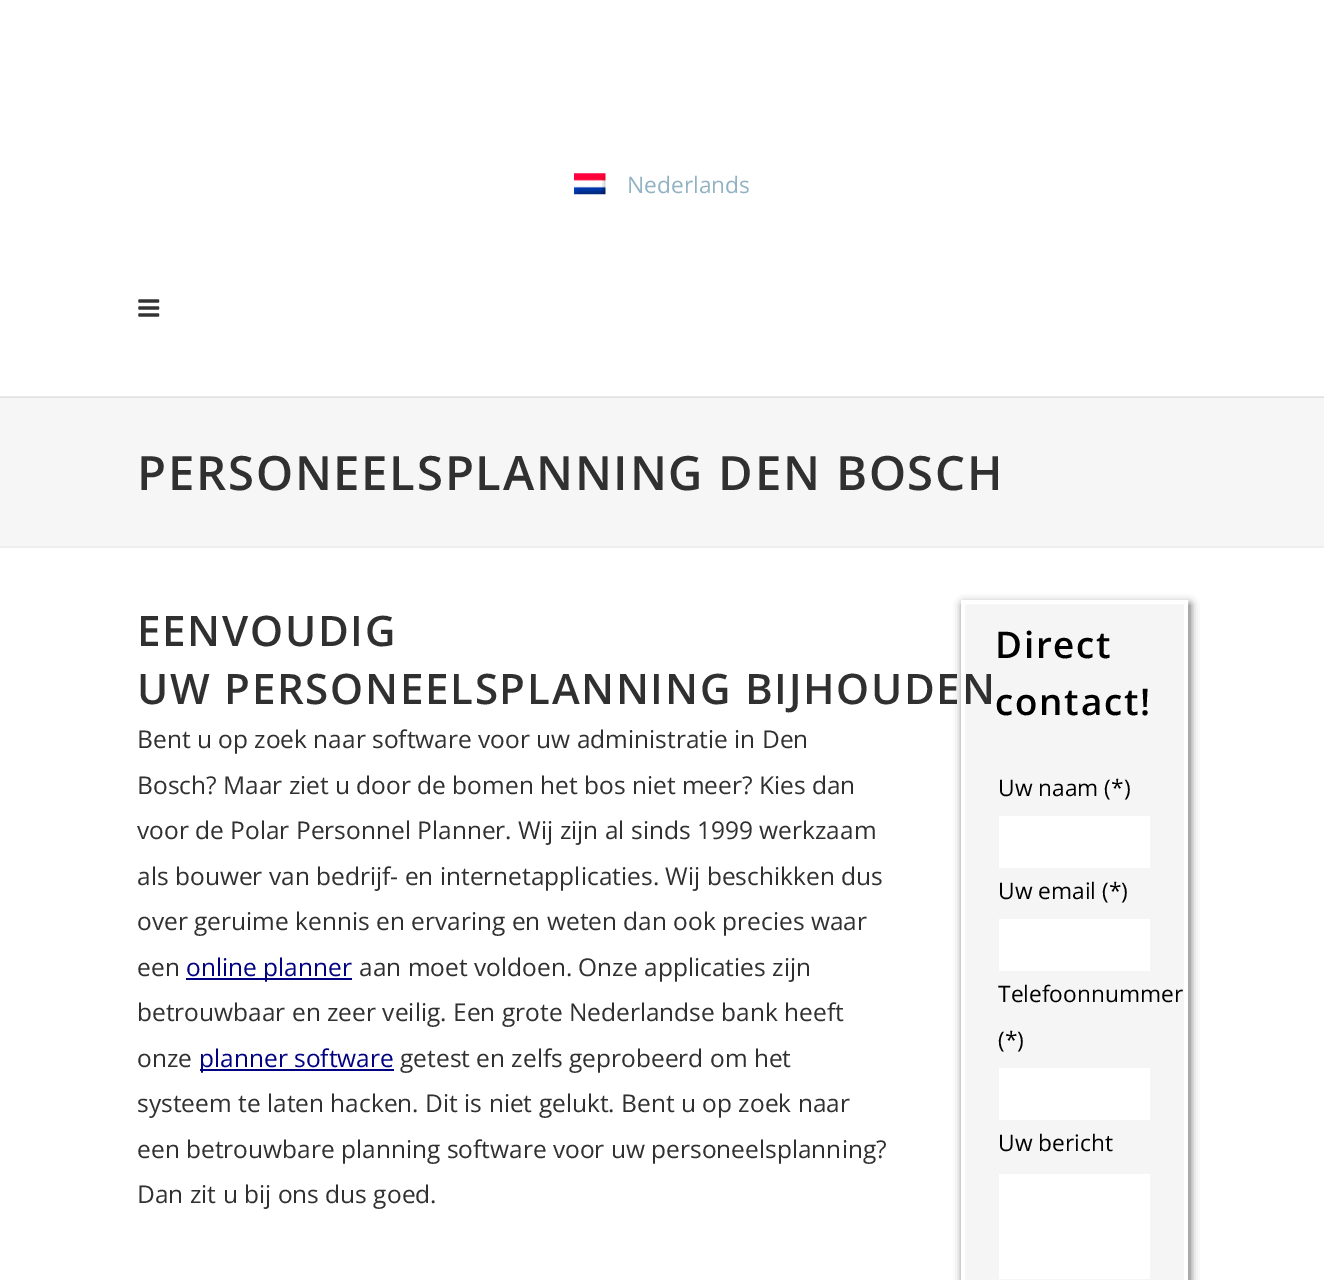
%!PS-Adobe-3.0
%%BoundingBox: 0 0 1324 1280
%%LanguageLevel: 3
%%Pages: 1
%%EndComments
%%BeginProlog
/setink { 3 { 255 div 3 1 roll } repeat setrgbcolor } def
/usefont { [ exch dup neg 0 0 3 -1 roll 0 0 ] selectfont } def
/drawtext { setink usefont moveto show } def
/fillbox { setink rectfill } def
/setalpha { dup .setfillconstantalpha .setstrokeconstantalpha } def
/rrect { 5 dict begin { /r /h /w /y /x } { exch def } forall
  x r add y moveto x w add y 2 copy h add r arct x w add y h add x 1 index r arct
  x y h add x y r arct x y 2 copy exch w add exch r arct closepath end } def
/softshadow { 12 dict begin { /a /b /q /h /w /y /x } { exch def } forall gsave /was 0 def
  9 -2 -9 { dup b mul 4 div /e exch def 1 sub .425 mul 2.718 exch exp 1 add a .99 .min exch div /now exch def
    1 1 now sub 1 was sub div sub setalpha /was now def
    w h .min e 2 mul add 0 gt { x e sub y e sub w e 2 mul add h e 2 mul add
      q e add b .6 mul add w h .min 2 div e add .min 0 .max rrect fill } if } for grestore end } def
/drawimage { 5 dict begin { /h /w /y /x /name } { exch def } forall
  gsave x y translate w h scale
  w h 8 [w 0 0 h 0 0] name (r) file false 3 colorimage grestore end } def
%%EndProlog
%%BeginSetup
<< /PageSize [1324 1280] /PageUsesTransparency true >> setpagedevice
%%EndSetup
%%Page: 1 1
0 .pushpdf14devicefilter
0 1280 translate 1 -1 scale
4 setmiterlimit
0 0 1324 1280 255 255 255 fillbox
0 396 1324 1 234 234 234 fillbox
(assets/img1.rgb) 574 173 32 22 drawimage
(Nederlands) 627 193 /OpenSans-Regular 22.75 145 178 195 drawtext
(assets/img2.rgb) 138 299 22 18 drawimage
0 398 1324 148 246 246 246 fillbox
0 397 1324 1 226 226 226 fillbox
0 546 1324 2 238 238 238 fillbox
/OpenSans-SemiBold 47.25 usefont
48 48 48 setink
137 490 moveto 1.75 0 (PERSONEELSPLANNING DEN BOSCH) ashow
/OpenSans-SemiBold 42 usefont
137 646 moveto 1.75 0 (EENVOUDIG) ashow
85 85 85 setink
963 604 227 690 0 4.5 1 softshadow
245 245 245 setink
963 602 moveto 1186 602 lineto 1186 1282 lineto 963 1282 lineto closepath gsave fill grestore
255 255 255 setink
4 setlinewidth
stroke
48 48 48 setink
137 704 moveto 1.75 0 (UW PERSONEELSPLANNING BIJHOUDEN) ashow
(Bent u op zoek naar software voor uw administratie in Den) 137 748 /OpenSans-Regular 24.5 48 48 48 drawtext
(Bosch? Maar ziet u door de bomen het bos niet meer? Kies dan) 137 794 /OpenSans-Regular 24.5 48 48 48 drawtext
(voor de Polar Personnel Planner. Wij zijn al sinds 1999 werkzaam) 137 839 /OpenSans-Regular 24.5 48 48 48 drawtext
(als bouwer van bedrijf- en internetapplicaties. Wij beschikken dus) 137 885 /OpenSans-Regular 24.5 48 48 48 drawtext
(over geruime kennis en ervaring en weten dan ook precies waar) 137 930 /OpenSans-Regular 24.5 48 48 48 drawtext
(een) 137 976 /OpenSans-Regular 24.5 48 48 48 drawtext
186 978 166 2 0 0 128 fillbox
(online planner) 186 976 /OpenSans-Regular 24.5 0 0 128 drawtext
(aan moet voldoen. Onze applicaties zijn) 359 976 /OpenSans-Regular 24.5 48 48 48 drawtext
(betrouwbaar en zeer veilig. Een grote Nederlandse bank heeft) 137 1021 /OpenSans-Regular 24.5 48 48 48 drawtext
(onze) 137 1067 /OpenSans-Regular 24.5 48 48 48 drawtext
200 1069 194 2 0 0 128 fillbox
(planner software) 199 1067 /OpenSans-Regular 24.5 0 0 128 drawtext
(getest en zelfs geprobeerd om het) 400 1067 /OpenSans-Regular 24.5 48 48 48 drawtext
(systeem te laten hacken. Dit is niet gelukt. Bent u op zoek naar) 137 1112 /OpenSans-Regular 24.5 48 48 48 drawtext
(een betrouwbare planning software voor uw personeelsplanning?) 137 1158 /OpenSans-Regular 24.5 48 48 48 drawtext
(Dan zit u bij ons dus goed.) 137 1203 /OpenSans-Regular 24.5 48 48 48 drawtext
/OpenSans-SemiBold 36.75 usefont
0 0 0 setink
995 658 moveto 1.75 0 (Direct) ashow
995 715 moveto 1.75 0 (contact!) ashow
(Uw naam \(*\)) 998 796 /OpenSans-Regular 22.75 0 0 0 drawtext
999 816 151 52 255 255 255 fillbox
(Uw email \(*\)) 998 899 /OpenSans-Regular 22.75 0 0 0 drawtext
999 919 151 52 255 255 255 fillbox
(Telefoonnummer) 998 1002 /OpenSans-Regular 22.75 0 0 0 drawtext
(\(*\)) 998 1048 /OpenSans-Regular 22.75 0 0 0 drawtext
999 1068 151 52 255 255 255 fillbox
(Uw bericht) 998 1151 /OpenSans-Regular 22.75 0 0 0 drawtext
999 1174 151 105 255 255 255 fillbox
.poppdf14devicefilter showpage
%%EOF
